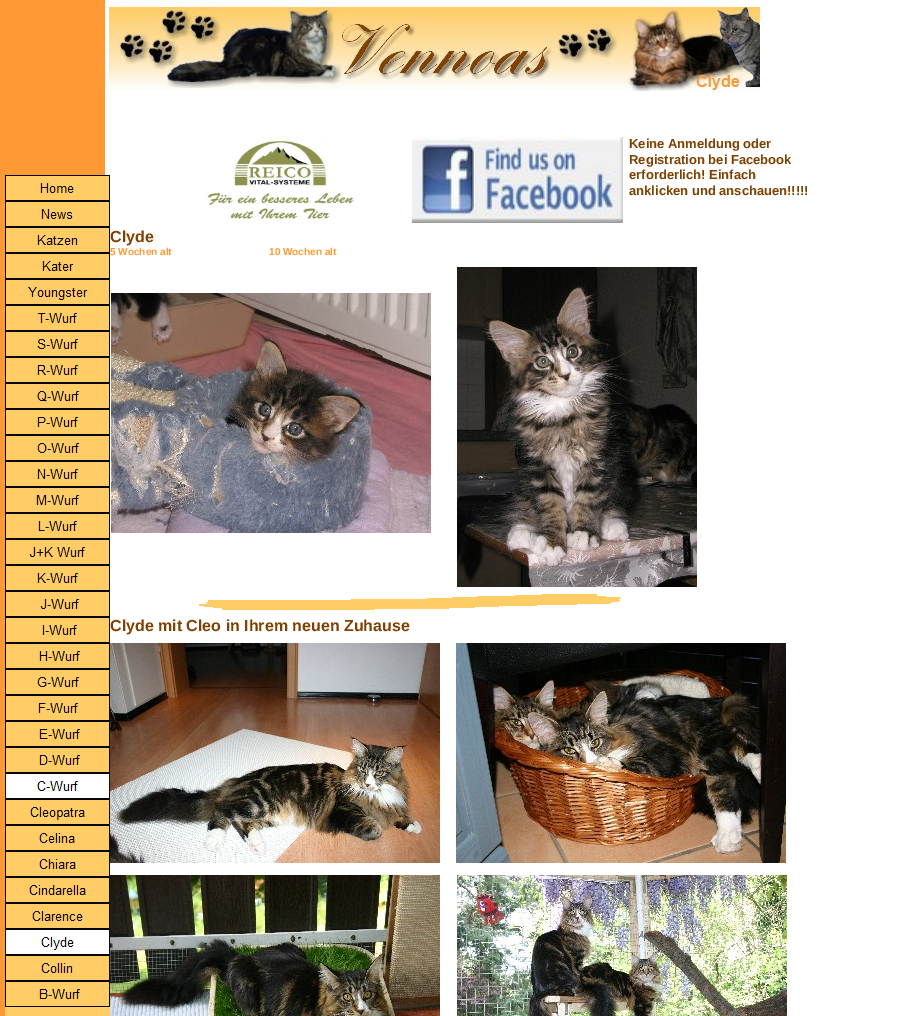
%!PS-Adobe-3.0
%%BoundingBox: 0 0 913 1016
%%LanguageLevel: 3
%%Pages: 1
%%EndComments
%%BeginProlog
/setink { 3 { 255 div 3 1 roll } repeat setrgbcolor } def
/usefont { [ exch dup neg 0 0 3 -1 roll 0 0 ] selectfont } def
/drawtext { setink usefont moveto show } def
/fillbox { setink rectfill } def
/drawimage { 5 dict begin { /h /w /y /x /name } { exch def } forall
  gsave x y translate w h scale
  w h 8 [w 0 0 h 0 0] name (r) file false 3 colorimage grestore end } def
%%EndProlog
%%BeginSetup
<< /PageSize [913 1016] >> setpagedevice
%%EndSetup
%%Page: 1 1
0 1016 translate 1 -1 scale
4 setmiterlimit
0 0 913 1016 255 255 255 fillbox
0 0 105 1016 255 153 51 fillbox
(assets/img1.rgb) 109 7 651 84 drawimage
(assets/img2.rgb) 5 175 105 26 drawimage
(assets/img3.rgb) 5 201 105 26 drawimage
(assets/img4.rgb) 5 227 105 26 drawimage
(assets/img5.rgb) 5 253 105 26 drawimage
(assets/img6.rgb) 5 279 105 26 drawimage
(assets/img7.rgb) 5 305 105 26 drawimage
(assets/img8.rgb) 5 331 105 26 drawimage
(assets/img9.rgb) 5 357 105 26 drawimage
(assets/img10.rgb) 5 383 105 26 drawimage
(assets/img11.rgb) 5 409 105 26 drawimage
(assets/img12.rgb) 5 435 105 26 drawimage
(assets/img13.rgb) 5 461 105 26 drawimage
(assets/img14.rgb) 5 487 105 26 drawimage
(assets/img15.rgb) 5 513 105 26 drawimage
(assets/img16.rgb) 5 539 105 26 drawimage
(assets/img17.rgb) 5 565 105 26 drawimage
(assets/img18.rgb) 5 591 105 26 drawimage
(assets/img19.rgb) 5 617 105 26 drawimage
(assets/img20.rgb) 5 643 105 26 drawimage
(assets/img21.rgb) 5 669 105 26 drawimage
(assets/img22.rgb) 5 695 105 26 drawimage
(assets/img23.rgb) 5 721 105 26 drawimage
(assets/img24.rgb) 5 747 105 26 drawimage
(assets/img25.rgb) 5 773 105 26 drawimage
(assets/img26.rgb) 5 799 105 26 drawimage
(assets/img27.rgb) 5 825 105 26 drawimage
(assets/img28.rgb) 5 851 105 26 drawimage
(assets/img29.rgb) 5 877 105 26 drawimage
(assets/img30.rgb) 5 903 105 26 drawimage
(assets/img31.rgb) 5 929 105 26 drawimage
(assets/img32.rgb) 5 955 105 26 drawimage
(assets/img33.rgb) 5 981 105 26 drawimage
5 1007 105 9 255 204 102 fillbox
(assets/img34.rgb) 207 140 148 80 drawimage
(assets/img35.rgb) 412 137 211 86 drawimage
(Keine Anmeldung oder) 629 148 /LiberationSans-Bold 13 128 64 0 drawtext
(Registration bei Facebook) 629 164 /LiberationSans-Bold 13 128 64 0 drawtext
(erforderlich! Einfach) 629 179 /LiberationSans-Bold 13 128 64 0 drawtext
(anklicken und anschauen!!!!!) 629 195 /LiberationSans-Bold 13 128 64 0 drawtext
(Clyde) 110 242 /LiberationSans-Bold 16 128 64 0 drawtext
(5 Wochen alt) 110 255 /LiberationSans-Bold 10 255 153 51 drawtext
(10 Wochen alt) 269 255 /LiberationSans-Bold 10 255 153 51 drawtext
(assets/img36.rgb) 111 293 320 240 drawimage
(assets/img37.rgb) 457 267 240 320 drawimage
(assets/img38.rgb) 199 594 422 16 drawimage
(Clyde mit Cleo in Ihrem neuen Zuhause) 110 631 /LiberationSans-Bold 16 128 64 0 drawtext
(assets/img39.rgb) 110 643 330 220 drawimage
(assets/img40.rgb) 456 643 330 220 drawimage
(assets/img41.rgb) 110 875 330 141 drawimage
(assets/img42.rgb) 457 875 330 141 drawimage
showpage
%%EOF
